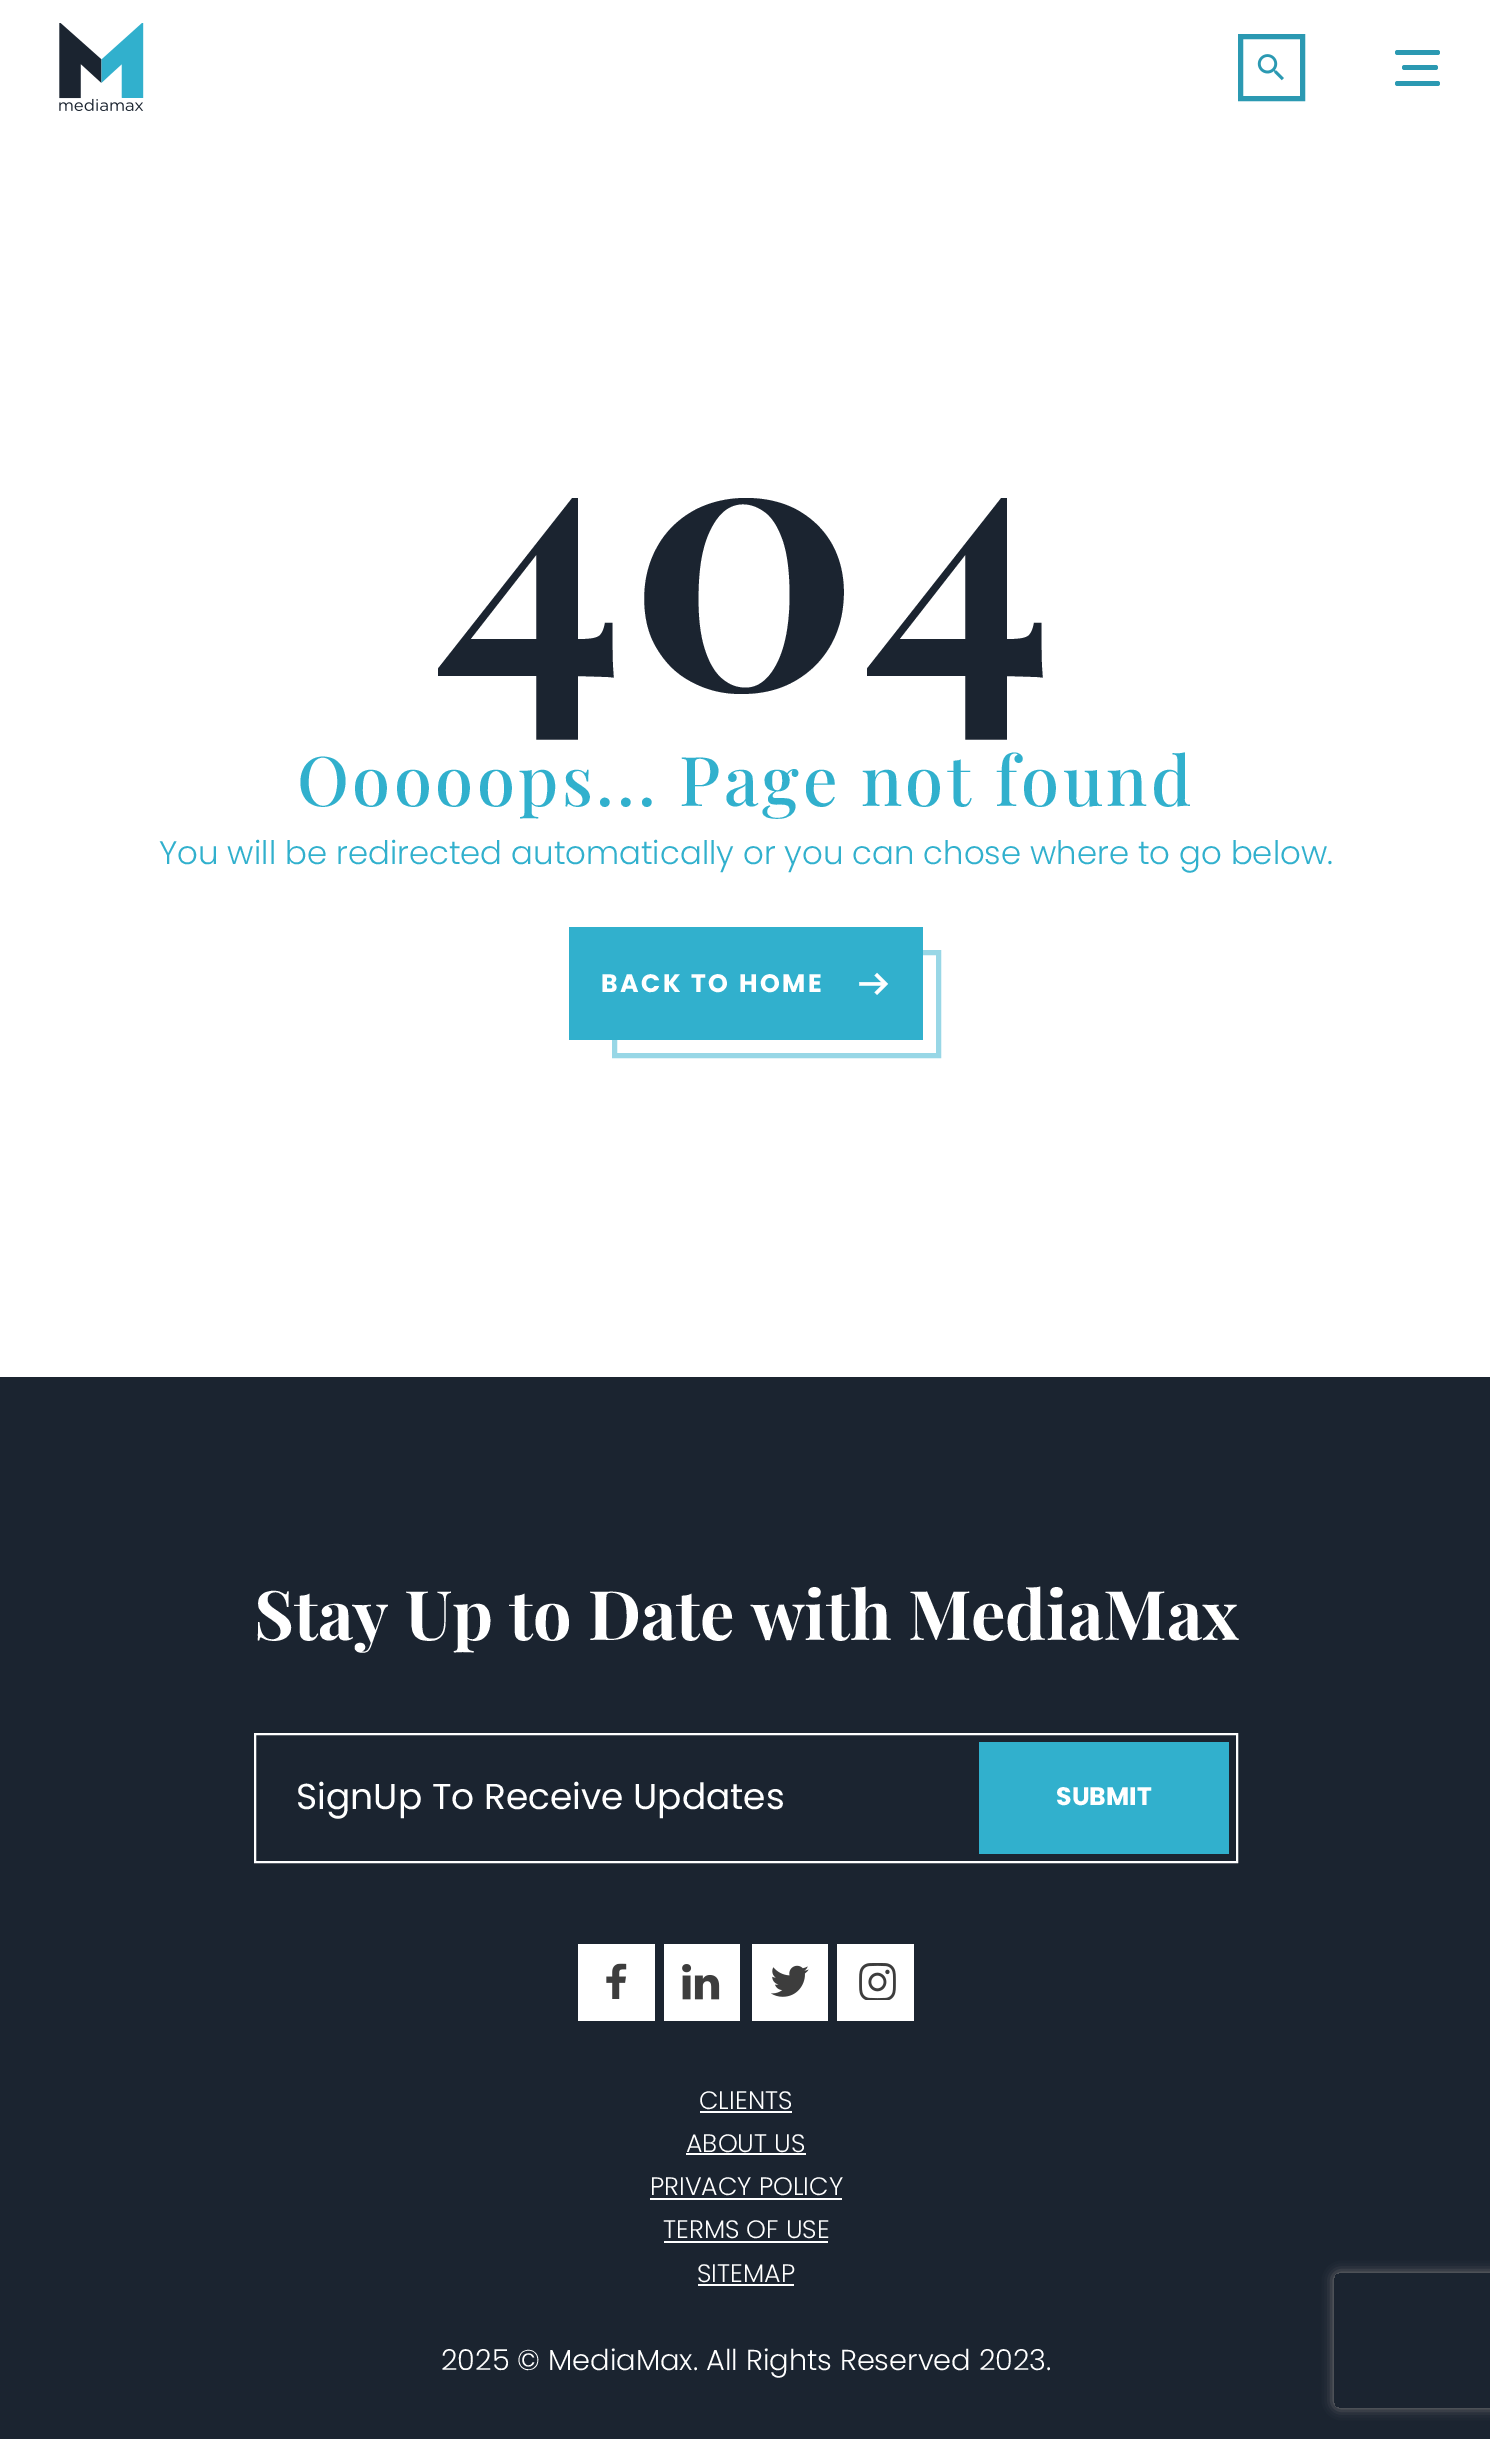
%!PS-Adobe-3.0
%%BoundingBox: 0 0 1490 2439
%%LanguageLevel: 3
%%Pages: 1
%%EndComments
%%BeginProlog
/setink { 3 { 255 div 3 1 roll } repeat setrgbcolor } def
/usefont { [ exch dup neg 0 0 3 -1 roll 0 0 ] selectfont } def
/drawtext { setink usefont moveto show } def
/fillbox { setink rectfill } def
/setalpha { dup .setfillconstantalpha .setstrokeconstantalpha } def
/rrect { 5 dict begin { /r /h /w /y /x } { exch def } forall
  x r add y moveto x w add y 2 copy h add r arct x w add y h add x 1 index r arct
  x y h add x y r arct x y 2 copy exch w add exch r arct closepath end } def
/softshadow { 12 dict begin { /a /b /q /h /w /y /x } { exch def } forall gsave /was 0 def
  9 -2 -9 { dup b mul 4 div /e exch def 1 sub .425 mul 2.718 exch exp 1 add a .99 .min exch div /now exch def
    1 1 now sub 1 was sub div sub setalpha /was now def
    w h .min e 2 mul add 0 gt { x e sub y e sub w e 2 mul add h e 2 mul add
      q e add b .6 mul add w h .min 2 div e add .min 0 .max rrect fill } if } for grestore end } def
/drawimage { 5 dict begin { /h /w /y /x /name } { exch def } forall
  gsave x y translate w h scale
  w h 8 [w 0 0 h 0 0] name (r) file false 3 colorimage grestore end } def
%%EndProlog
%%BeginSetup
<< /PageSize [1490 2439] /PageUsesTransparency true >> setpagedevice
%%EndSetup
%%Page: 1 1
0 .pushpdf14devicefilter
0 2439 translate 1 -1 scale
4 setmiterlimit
0 0 1490 2439 255 255 255 fillbox
(assets/img1.rgb) 59 23 85 88 drawimage
43 153 178 setink
5 setlinewidth
1240.5 36.5 62 62 rectstroke
(assets/img2.rgb) 1257 54 27 27 drawimage
1402 65 36 5 2.5 rrect fill
1395 50 45 5 2.5 rrect fill
1395 81 45 5 2.5 rrect fill
/PlayfairDisplay-Bold 360 usefont
27 36 48 setink
435 689 moveto 3.4 0 (404) ashow
/PlayfairDisplay-Medium 68.6 usefont
49 176 205 setink
297 806 moveto 3.4 0 (Ooooops... Page not found) ashow
(You will be redirected automatically or you can chose where to go below.) 159 864 /Poppins-Light 32.4 49 176 205 drawtext
569 927 354 113 49 176 205 fillbox
0.5 setalpha
614.5 952.5 324 103 rectstroke
/Poppins-Bold 25.25 usefont
1 setalpha
255 255 255 setink
601 992 moveto 2.5 0 (BACK TO HOME) ashow
(assets/img3.rgb) 859 972 30 23 drawimage
0 1377 1490 1062 27 36 48 fillbox
(Stay Up to Date with MediaMax) 254 1640 /PlayfairDisplay-Bold 68.4 255 255 255 drawtext
2 setlinewidth
255 1734 982 128 rectstroke
(SignUp To Receive Updates) 296 1809 /Poppins-Regular 36 255 255 255 drawtext
gsave
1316 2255 moveto 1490 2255 lineto 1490 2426 lineto 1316 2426 lineto closepath 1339 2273 moveto 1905 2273 lineto 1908 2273 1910 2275 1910 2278 curveto 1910 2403 lineto 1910 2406 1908 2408 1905 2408 curveto 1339 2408 lineto 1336 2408 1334 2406 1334 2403 curveto 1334 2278 lineto 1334 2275 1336 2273 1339 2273 curveto closepath eoclip newpath
128 128 128 setink
1334 2273 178 135 5 5.5 1 softshadow
grestore
979 1742 250 112 49 176 205 fillbox
(SUBMIT) 1056 1805 /Poppins-Bold 25.25 255 255 255 drawtext
578 1944 77 77 255 255 255 fillbox
(assets/img4.rgb) 606 1963 21 36 drawimage
664 1944 76 77 255 255 255 fillbox
(assets/img5.rgb) 682 1964 38 36 drawimage
752 1944 76 77 255 255 255 fillbox
(assets/img6.rgb) 771 1965 38 32 drawimage
837 1944 77 77 255 255 255 fillbox
(assets/img7.rgb) 859 1963 37 37 drawimage
(CLIENTS) 699 2109 /Poppins-Light 25.25 255 255 255 drawtext
700 2111 92 2 255 255 255 fillbox
(ABOUT US) 686 2152 /Poppins-Light 25.25 255 255 255 drawtext
686 2153 120 2 255 255 255 fillbox
(PRIVACY POLICY) 650 2195 /Poppins-Light 25.25 255 255 255 drawtext
650 2198 192 2 255 255 255 fillbox
(TERMS OF USE) 663 2238 /Poppins-Light 25.25 255 255 255 drawtext
664 2241 164 2 255 255 255 fillbox
(SITEMAP) 697 2282 /Poppins-Light 25.25 255 255 255 drawtext
698 2284 96 2 255 255 255 fillbox
(2025 © MediaMax. All Rights Reserved 2023.) 441 2370 /Poppins-Light 28.8 255 255 255 drawtext
.poppdf14devicefilter showpage
%%EOF
